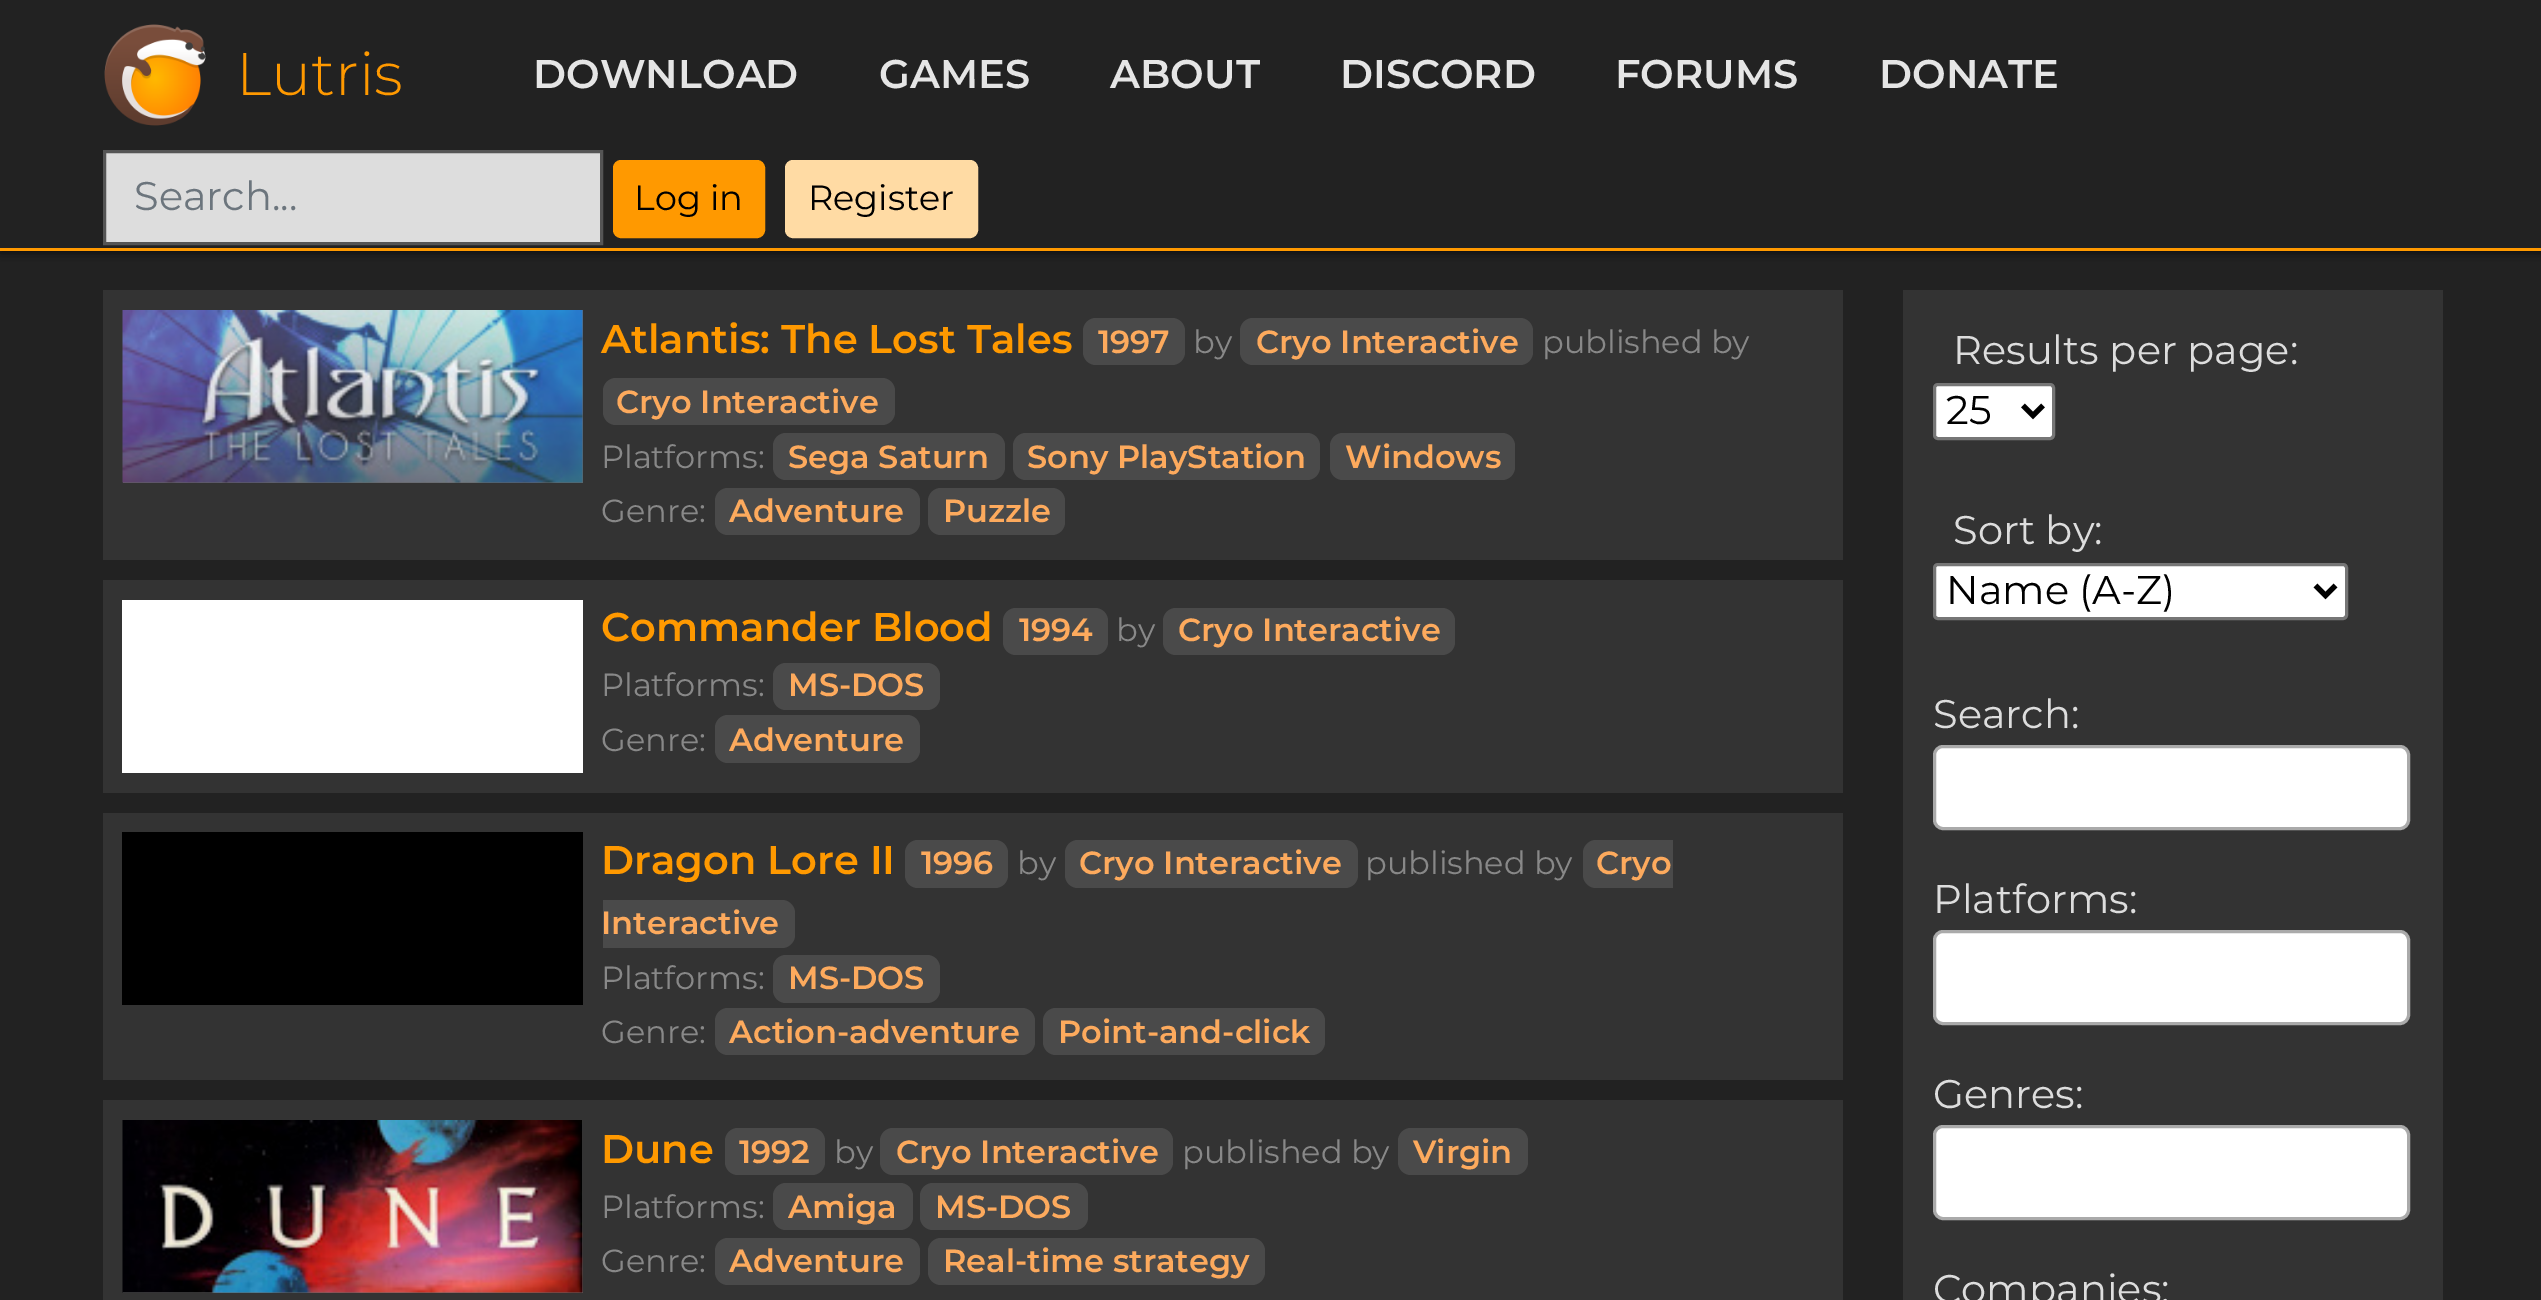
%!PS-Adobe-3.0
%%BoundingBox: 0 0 2541 1300
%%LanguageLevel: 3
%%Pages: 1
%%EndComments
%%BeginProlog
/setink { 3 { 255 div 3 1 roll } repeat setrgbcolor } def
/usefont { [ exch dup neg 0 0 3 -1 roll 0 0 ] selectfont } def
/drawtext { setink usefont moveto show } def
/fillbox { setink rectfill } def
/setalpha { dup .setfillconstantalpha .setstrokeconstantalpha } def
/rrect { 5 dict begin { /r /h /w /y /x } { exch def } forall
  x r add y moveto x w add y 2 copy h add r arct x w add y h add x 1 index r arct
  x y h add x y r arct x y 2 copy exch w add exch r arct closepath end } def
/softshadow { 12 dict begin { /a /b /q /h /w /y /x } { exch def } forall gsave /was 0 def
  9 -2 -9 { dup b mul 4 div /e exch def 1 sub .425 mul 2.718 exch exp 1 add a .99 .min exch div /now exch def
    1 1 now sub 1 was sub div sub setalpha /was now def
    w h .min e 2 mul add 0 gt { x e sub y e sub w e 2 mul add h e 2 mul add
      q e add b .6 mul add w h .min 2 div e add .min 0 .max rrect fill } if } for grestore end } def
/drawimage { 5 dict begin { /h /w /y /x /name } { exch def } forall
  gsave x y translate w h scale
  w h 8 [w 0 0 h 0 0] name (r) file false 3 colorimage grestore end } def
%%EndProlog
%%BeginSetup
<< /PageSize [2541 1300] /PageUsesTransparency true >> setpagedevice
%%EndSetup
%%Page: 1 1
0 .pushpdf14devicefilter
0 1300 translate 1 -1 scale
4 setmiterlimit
0 0 2541 1300 34 34 34 fillbox
gsave
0 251 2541 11 rectclip
0 0 0 setink
0 0 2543 250 0 6 1 softshadow
grestore
0 248 2541 3 255 153 0 fillbox
(assets/img1.rgb) 104 24 102 102 drawimage
(Lutris) 236 95 /Montserrat-Light 60 255 153 0 drawtext
(DOWNLOAD) 533 88 /Montserrat-SemiBold 40 229 229 229 drawtext
(GAMES) 879 88 /Montserrat-SemiBold 40 229 229 229 drawtext
(ABOUT) 1110 88 /Montserrat-SemiBold 40 229 229 229 drawtext
(DISCORD) 1340 88 /Montserrat-SemiBold 40 229 229 229 drawtext
(FORUMS) 1615 88 /Montserrat-SemiBold 40 229 229 229 drawtext
(DONATE) 1879 88 /Montserrat-SemiBold 40 229 229 229 drawtext
221 221 221 setink
104.5 151.5 moveto 601.5 151.5 lineto 601.5 243.5 lineto 104.5 243.5 lineto closepath gsave fill grestore
85 85 85 setink
3 setlinewidth
stroke
(Search...) 134 210 /Montserrat-Regular 40 108 117 125 drawtext
255 153 0 setink
614.5 161.5 149 75 6.5 rrect gsave fill grestore
stroke
(Log in) 634 210 /Montserrat-Regular 35 0 0 0 drawtext
255 219 164 setink
786.5 161.5 190 75 6.5 rrect gsave fill grestore
stroke
(Register) 808 210 /Montserrat-Regular 35 0 0 0 drawtext
103 290 1740 270 51 51 51 fillbox
123 310 460 173 102 102 102 fillbox
(assets/img2.rgb) 122 310 461 173 drawimage
(Atlantis: The Lost Tales) 601 353 /Montserrat-SemiBold 40 255 153 0 drawtext
74 74 74 setink
1083 318 102 47 13 rrect fill
(1997) 1098 353 /Montserrat-SemiBold 32 253 170 93 drawtext
(by) 1193 353 /Montserrat-Regular 32 136 136 136 drawtext
74 74 74 setink
1240 318 293 47 13 rrect fill
(Cryo Interactive) 1256 353 /Montserrat-SemiBold 32 253 170 93 drawtext
(published by) 1542 353 /Montserrat-Regular 32 136 136 136 drawtext
74 74 74 setink
603 378 292 47 13 rrect fill
(Cryo Interactive) 616 413 /Montserrat-SemiBold 32 253 170 93 drawtext
(Platforms:) 601 468 /Montserrat-Regular 32 136 136 136 drawtext
74 74 74 setink
773 433 232 47 13 rrect fill
(Sega Saturn) 788 468 /Montserrat-SemiBold 32 253 170 93 drawtext
74 74 74 setink
1013 433 307 47 13 rrect fill
(Sony PlayStation) 1027 468 /Montserrat-SemiBold 32 253 170 93 drawtext
74 74 74 setink
1330 433 185 47 13 rrect fill
(Windows) 1345 468 /Montserrat-SemiBold 32 253 170 93 drawtext
(Genre:) 601 522 /Montserrat-Regular 32 136 136 136 drawtext
74 74 74 setink
715 488 205 47 13 rrect fill
(Adventure) 729 522 /Montserrat-SemiBold 32 253 170 93 drawtext
74 74 74 setink
928 488 137 47 13 rrect fill
(Puzzle) 943 522 /Montserrat-SemiBold 32 253 170 93 drawtext
103 580 1740 213 51 51 51 fillbox
122 600 461 173 255 255 255 fillbox
(Commander Blood) 601 641 /Montserrat-SemiBold 40 255 153 0 drawtext
74 74 74 setink
1003 608 105 47 13 rrect fill
(1994) 1019 641 /Montserrat-SemiBold 32 253 170 93 drawtext
(by) 1116 641 /Montserrat-Regular 32 136 136 136 drawtext
74 74 74 setink
1163 608 292 47 13 rrect fill
(Cryo Interactive) 1178 641 /Montserrat-SemiBold 32 253 170 93 drawtext
(Platforms:) 601 696 /Montserrat-Regular 32 136 136 136 drawtext
74 74 74 setink
773 663 167 47 13 rrect fill
(MS-DOS) 788 696 /Montserrat-SemiBold 32 253 170 93 drawtext
(Genre:) 601 751 /Montserrat-Regular 32 136 136 136 drawtext
74 74 74 setink
715 715 205 48 13 rrect fill
(Adventure) 729 751 /Montserrat-SemiBold 32 253 170 93 drawtext
103 813 1740 267 51 51 51 fillbox
122 832 461 173 0 0 0 fillbox
(Dragon Lore II) 601 874 /Montserrat-SemiBold 40 255 153 0 drawtext
74 74 74 setink
905 840 103 48 13 rrect fill
(1996) 921 874 /Montserrat-SemiBold 32 253 170 93 drawtext
(by) 1017 874 /Montserrat-Regular 32 136 136 136 drawtext
74 74 74 setink
1065 840 293 48 13 rrect fill
(Cryo Interactive) 1079 874 /Montserrat-SemiBold 32 253 170 93 drawtext
(published by) 1365 874 /Montserrat-Regular 32 136 136 136 drawtext
74 74 74 setink
1596 840 moveto 1673 840 lineto 1673 888 lineto 1596 888 lineto 1589 888 1583 882 1583 875 curveto 1583 853 lineto 1583 846 1589 840 1596 840 curveto closepath fill
(Cryo) 1596 874 /Montserrat-SemiBold 32 253 170 93 drawtext
74 74 74 setink
603 900 moveto 782 900 lineto 789 900 795 906 795 913 curveto 795 935 lineto 795 942 789 948 782 948 curveto 603 948 lineto closepath fill
(Interactive) 601 934 /Montserrat-SemiBold 32 253 170 93 drawtext
(Platforms:) 601 989 /Montserrat-Regular 32 136 136 136 drawtext
74 74 74 setink
773 955 167 48 13 rrect fill
(MS-DOS) 788 989 /Montserrat-SemiBold 32 253 170 93 drawtext
(Genre:) 601 1043 /Montserrat-Regular 32 136 136 136 drawtext
74 74 74 setink
715 1008 320 47 13 rrect fill
(Action-adventure) 729 1043 /Montserrat-SemiBold 32 253 170 93 drawtext
74 74 74 setink
1043 1008 282 47 13 rrect fill
(Point-and-click) 1058 1043 /Montserrat-SemiBold 32 253 170 93 drawtext
103 1100 1740 200 51 51 51 fillbox
123 1120 460 173 102 102 102 fillbox
(assets/img3.rgb) 122 1120 461 173 drawimage
(Dune) 601 1163 /Montserrat-SemiBold 40 255 153 0 drawtext
74 74 74 setink
725 1128 100 47 13 rrect fill
(1992) 739 1163 /Montserrat-SemiBold 32 253 170 93 drawtext
(by) 834 1163 /Montserrat-Regular 32 136 136 136 drawtext
74 74 74 setink
880 1128 293 47 13 rrect fill
(Cryo Interactive) 896 1163 /Montserrat-SemiBold 32 253 170 93 drawtext
(published by) 1182 1163 /Montserrat-Regular 32 136 136 136 drawtext
74 74 74 setink
1398 1128 130 47 13 rrect fill
(Virgin) 1413 1163 /Montserrat-SemiBold 32 253 170 93 drawtext
(Platforms:) 601 1218 /Montserrat-Regular 32 136 136 136 drawtext
74 74 74 setink
773 1183 140 47 13 rrect fill
(Amiga) 788 1218 /Montserrat-SemiBold 32 253 170 93 drawtext
74 74 74 setink
920 1183 168 47 13 rrect fill
(MS-DOS) 935 1218 /Montserrat-SemiBold 32 253 170 93 drawtext
(Genre:) 601 1272 /Montserrat-Regular 32 136 136 136 drawtext
74 74 74 setink
715 1238 205 47 13 rrect fill
(Adventure) 729 1272 /Montserrat-SemiBold 32 253 170 93 drawtext
74 74 74 setink
928 1238 337 47 13 rrect fill
(Real-time strategy) 943 1272 /Montserrat-SemiBold 32 253 170 93 drawtext
1903 290 540 1010 51 51 51 fillbox
(Results per page:) 1953 364 /Montserrat-Regular 40 221 221 221 drawtext
255 255 255 setink
1934.5 384.5 119 54 3.5 rrect gsave fill grestore
118 118 118 setink
stroke
0 0 0 setink
5 setlinewidth
2023 405.5 moveto 2033 415.5 lineto 2043 405.5 lineto stroke
(25) 1946 424 /Montserrat-Regular 40 0 0 0 drawtext
(Sort by:) 1953 544 /Montserrat-Regular 40 221 221 221 drawtext
255 255 255 setink
1934.5 564.5 412 54 3.5 rrect gsave fill grestore
118 118 118 setink
3 setlinewidth
stroke
0 0 0 setink
5 setlinewidth
2315.5 585.5 moveto 2325.5 595.5 lineto 2335.5 585.5 lineto stroke
(Name \(A-Z\)) 1946 604 /Montserrat-Regular 40 0 0 0 drawtext
(Search:) 1933 728 /Montserrat-Regular 40 221 221 221 drawtext
255 255 255 setink
1934.5 746.5 474 82 8.5 rrect gsave fill grestore
170 170 170 setink
3 setlinewidth
stroke
(Platforms:) 1933 913 /Montserrat-Regular 40 221 221 221 drawtext
255 255 255 setink
1934.5 931.5 474 92 8.5 rrect gsave fill grestore
170 170 170 setink
stroke
(Genres:) 1933 1108 /Montserrat-Regular 40 221 221 221 drawtext
255 255 255 setink
1934.5 1126.5 474 92 8.5 rrect gsave fill grestore
170 170 170 setink
stroke
(Companies:) 1933 1303 /Montserrat-Regular 40 221 221 221 drawtext
.poppdf14devicefilter showpage
%%EOF
